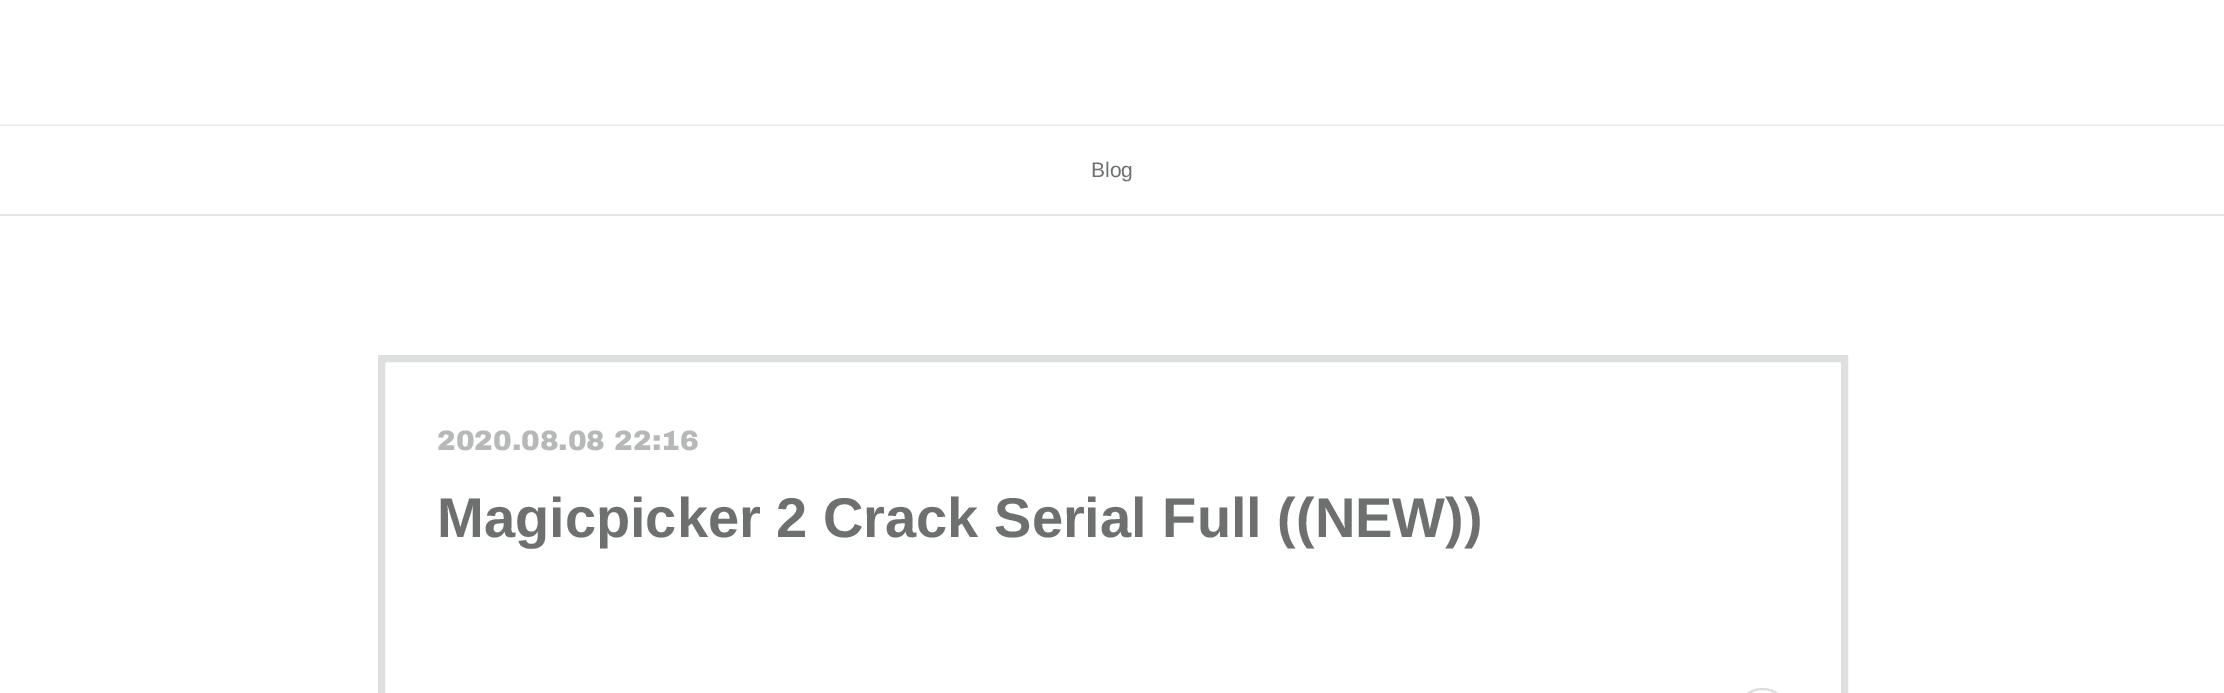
%!PS-Adobe-3.0
%%BoundingBox: 0 0 2224 693
%%LanguageLevel: 3
%%Pages: 1
%%EndComments
%%BeginProlog
/setink { 3 { 255 div 3 1 roll } repeat setrgbcolor } def
/usefont { [ exch dup neg 0 0 3 -1 roll 0 0 ] selectfont } def
/drawtext { setink usefont moveto show } def
/fillbox { setink rectfill } def
/rrect { 5 dict begin { /r /h /w /y /x } { exch def } forall
  x r add y moveto x w add y 2 copy h add r arct x w add y h add x 1 index r arct
  x y h add x y r arct x y 2 copy exch w add exch r arct closepath end } def
%%EndProlog
%%BeginSetup
<< /PageSize [2224 693] >> setpagedevice
%%EndSetup
%%Page: 1 1
0 693 translate 1 -1 scale
4 setmiterlimit
0 0 2224 693 255 255 255 fillbox
0 124 2224 2 238 238 238 fillbox
0 214 2224 2 230 230 230 fillbox
(Blog) 1091 177 /LiberationSans-Regular 21 110 112 112 drawtext
222 224 224 setink
7 setlinewidth
381.5 358.5 1463 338 rectstroke
(2020.08.08 22:16) 437 450 /ArchivoBlack-Black 28 183 184 184 drawtext
(Magicpicker 2 Crack Serial Full \(\(NEW\)\)) 437 537 /LiberationSans-Bold 56 110 112 112 drawtext
221 221 221 setink
2 setlinewidth
1737 689 51 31 25 rrect stroke
showpage
%%EOF
